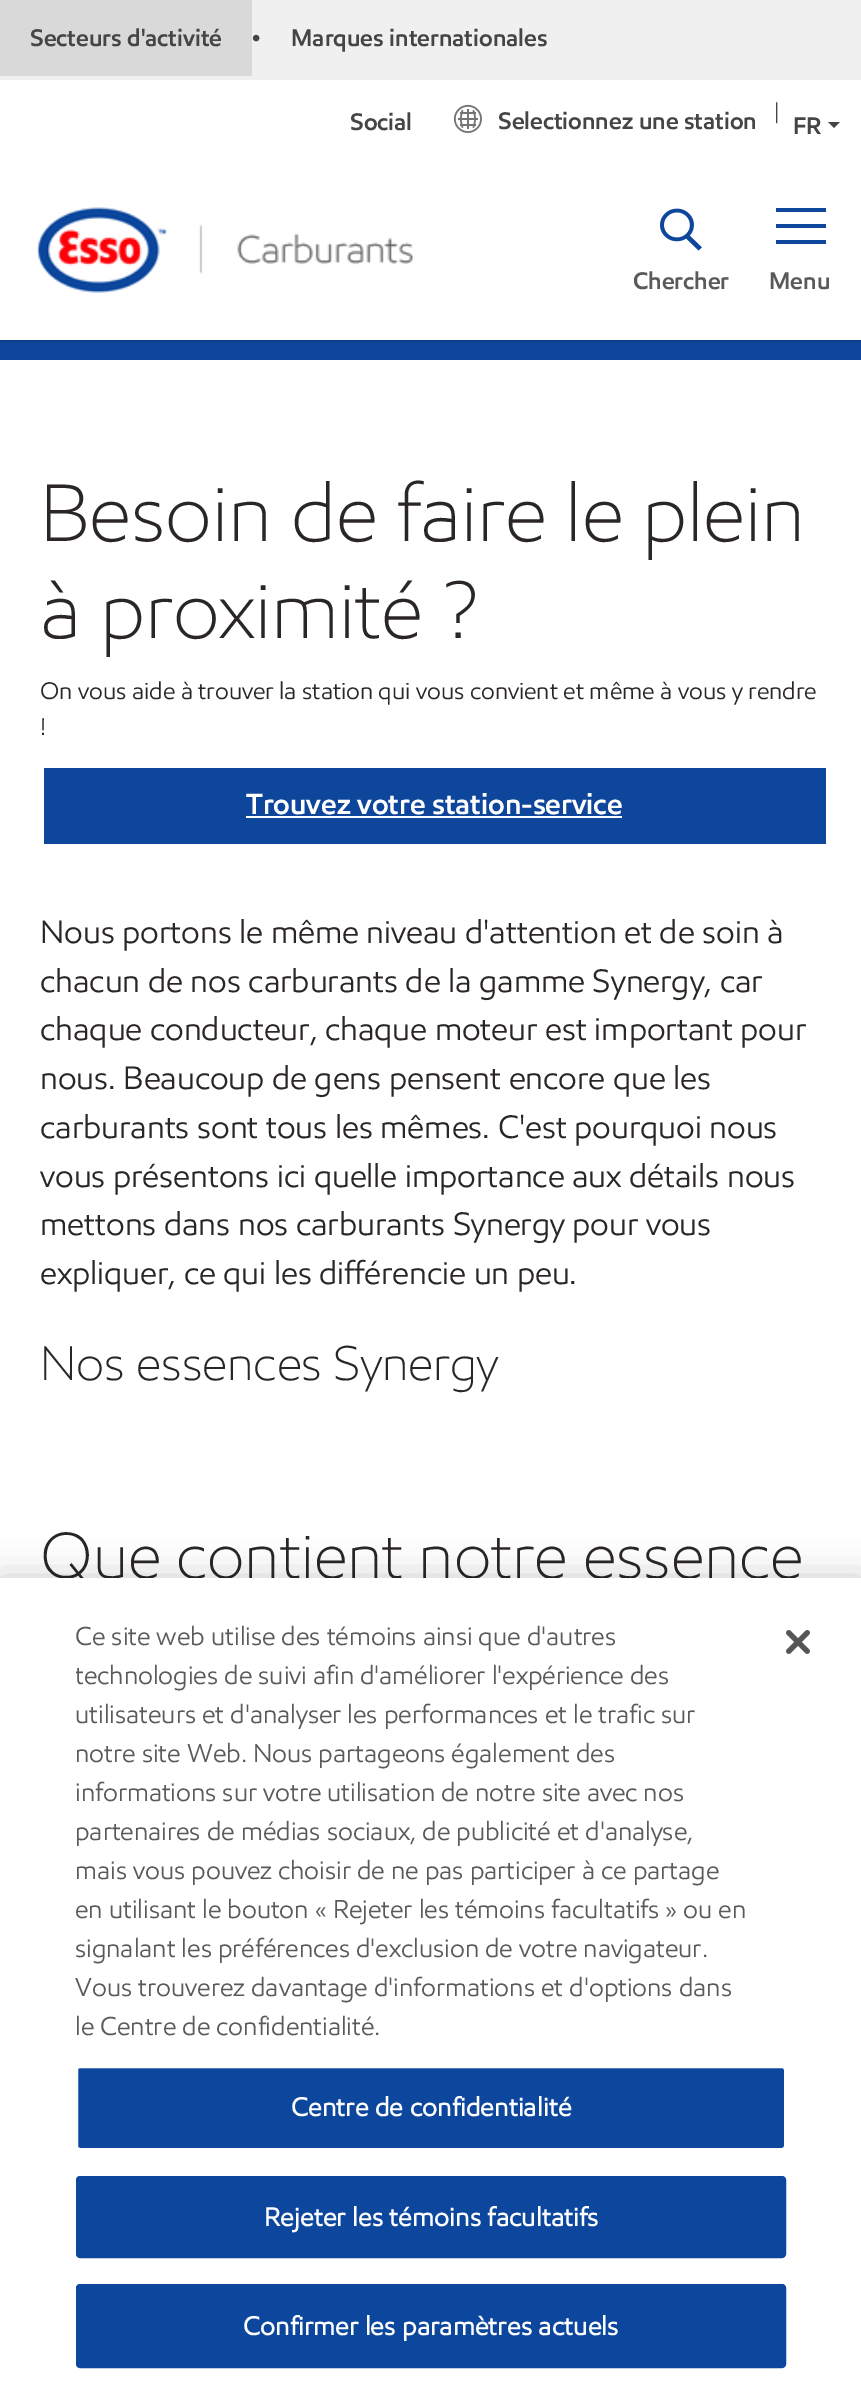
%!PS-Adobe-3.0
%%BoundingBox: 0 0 861 2394
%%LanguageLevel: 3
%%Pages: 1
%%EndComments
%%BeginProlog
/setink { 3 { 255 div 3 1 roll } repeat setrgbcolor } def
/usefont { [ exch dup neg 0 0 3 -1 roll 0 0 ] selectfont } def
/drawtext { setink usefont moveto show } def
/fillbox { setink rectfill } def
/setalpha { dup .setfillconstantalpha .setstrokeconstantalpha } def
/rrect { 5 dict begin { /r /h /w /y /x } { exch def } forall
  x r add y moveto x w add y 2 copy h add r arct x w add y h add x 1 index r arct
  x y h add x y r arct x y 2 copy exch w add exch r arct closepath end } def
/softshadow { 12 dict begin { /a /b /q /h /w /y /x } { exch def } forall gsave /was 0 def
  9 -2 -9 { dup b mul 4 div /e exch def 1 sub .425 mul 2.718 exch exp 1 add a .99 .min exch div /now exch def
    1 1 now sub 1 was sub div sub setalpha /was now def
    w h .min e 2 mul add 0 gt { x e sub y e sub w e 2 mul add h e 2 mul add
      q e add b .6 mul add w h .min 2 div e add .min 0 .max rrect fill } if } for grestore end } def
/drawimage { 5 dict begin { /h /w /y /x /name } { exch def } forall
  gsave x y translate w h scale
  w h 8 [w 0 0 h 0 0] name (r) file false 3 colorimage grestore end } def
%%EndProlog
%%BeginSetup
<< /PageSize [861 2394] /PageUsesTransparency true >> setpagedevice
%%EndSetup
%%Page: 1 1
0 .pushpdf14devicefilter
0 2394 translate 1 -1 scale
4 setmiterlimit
0 0 861 2394 255 255 255 fillbox
0 340 861 20 14 70 155 fillbox
gsave
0 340 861 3 rectclip
17 17 17 setink
0 2 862 340 0 1 0.15 softshadow
grestore
0 0 861 80 240 240 240 fillbox
0 0 252 76 217 217 217 fillbox
(Secteurs d'activité) 30 46 /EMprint-SemiBold 24 69 69 69 drawtext
(•) 252 46 /LiberationSans-Regular 24 69 69 69 drawtext
(Marques internationales) 291 46 /EMprint-SemiBold 24 69 69 69 drawtext
(Social) 350 130 /EMprint-SemiBold 24 69 69 69 drawtext
(assets/img1.rgb) 453 104 29 29 drawimage
(Selectionnez une station) 498 129 /EMprint-SemiBold 24 69 69 69 drawtext
(|) 774 118 /EMprint-Light 21 0 0 0 drawtext
(FR) 793 134 /EMprint-SemiBold 24 69 69 69 drawtext
828 122 moveto 840 122 lineto 834 128 lineto closepath fill
(assets/img2.rgb) 36 207 377 87 drawimage
(assets/img3.rgb) 660 208 42 43 drawimage
(Chercher) 633 289 /EMprint-SemiBold 24 90 90 90 drawtext
776 224 50 4 14 70 155 fillbox
776 208 50 4 14 70 155 fillbox
776 240 50 4 14 70 155 fillbox
(Menu) 769 289 /EMprint-SemiBold 24 90 90 90 drawtext
(Besoin de faire le plein) 40 541 /EMprint-Light 81.25 43 38 38 drawtext
(à proximité ?) 40 638 /EMprint-Light 81.25 43 38 38 drawtext
(On vous aide à trouver la station qui vous convient et même à vous y rendre) 40 699 /EMprint-Regular 24 43 38 38 drawtext
(!) 40 735 /EMprint-Regular 24 43 38 38 drawtext
44 768 782 76 14 70 155 fillbox
(Trouvez votre station-service) 246 814 /EMprint-SemiBold 29.25 255 255 255 drawtext
246 816 376 2 255 255 255 fillbox
(Nous portons le même niveau d'attention et de soin à) 40 943 /EMprint-Regular 32.5 43 38 38 drawtext
(chacun de nos carburants de la gamme Synergy, car) 40 992 /EMprint-Regular 32.5 43 38 38 drawtext
(chaque conducteur, chaque moteur est important pour) 40 1040 /EMprint-Regular 32.5 43 38 38 drawtext
(nous. Beaucoup de gens pensent encore que les) 40 1089 /EMprint-Regular 32.5 43 38 38 drawtext
(carburants sont tous les mêmes. C'est pourquoi nous) 40 1138 /EMprint-Regular 32.5 43 38 38 drawtext
(vous présentons ici quelle importance aux détails nous) 40 1187 /EMprint-Regular 32.5 43 38 38 drawtext
(mettons dans nos carburants Synergy pour vous) 40 1235 /EMprint-Regular 32.5 43 38 38 drawtext
(expliquer, ce qui les différencie un peu.) 40 1284 /EMprint-Regular 32.5 43 38 38 drawtext
(Nos essences Synergy) 40 1380 /EMprint-Light 48.75 43 38 38 drawtext
(Que contient notre essence) 40 1578 /EMprint-Light 65 43 38 38 drawtext
0 0 0 setink
0 1578 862 816 0 18 0.2 softshadow
0 1578 861 816 255 255 255 fillbox
(Ce site web utilise des témoins ainsi que d'autres) 75 1645 /EMprint-Regular 26 90 90 90 drawtext
gsave
76 1618 672 428 rectclip
(technologies de suivi afin d'améliorer l'expérience des) 75 1684 /EMprint-Regular 26 90 90 90 drawtext
grestore
(utilisateurs et d'analyser les performances et le trafic sur) 75 1723 /EMprint-Regular 26 90 90 90 drawtext
(notre site Web. Nous partageons également des) 75 1762 /EMprint-Regular 26 90 90 90 drawtext
(informations sur votre utilisation de notre site avec nos) 75 1801 /EMprint-Regular 26 90 90 90 drawtext
(partenaires de médias sociaux, de publicité et d'analyse,) 75 1840 /EMprint-Regular 26 90 90 90 drawtext
(mais vous pouvez choisir de ne pas participer à ce partage) 75 1879 /EMprint-Regular 26 90 90 90 drawtext
(en utilisant le bouton « Rejeter les témoins facultatifs » ou en) 75 1918 /EMprint-Regular 26 90 90 90 drawtext
(signalant les préférences d'exclusion de votre navigateur.) 75 1957 /EMprint-Regular 26 90 90 90 drawtext
(Vous trouverez davantage d'informations et d'options dans) 75 1996 /EMprint-Regular 26 90 90 90 drawtext
(le Centre de confidentialité.) 75 2035 /EMprint-Regular 26 90 90 90 drawtext
12 71 157 setink
77 2067 708 82 3 rrect gsave fill grestore
255 255 255 setink
2 setlinewidth
stroke
/EMprint-Bold 26 usefont
291 2116 moveto 0.25 0 (Centre de confidentialité) ashow
12 71 157 setink
77 2177 708 80 3 rrect gsave fill grestore
stroke
255 255 255 setink
264 2226 moveto 0.25 0 (Rejeter les témoins facultatifs) ashow
12 71 157 setink
77 2285 708 82 3 rrect gsave fill grestore
stroke
255 255 255 setink
243 2335 moveto 0.25 0 (Confirmer les paramètres actuels) ashow
(assets/img4.rgb) 786 1630 24 24 drawimage
.poppdf14devicefilter showpage
%%EOF
